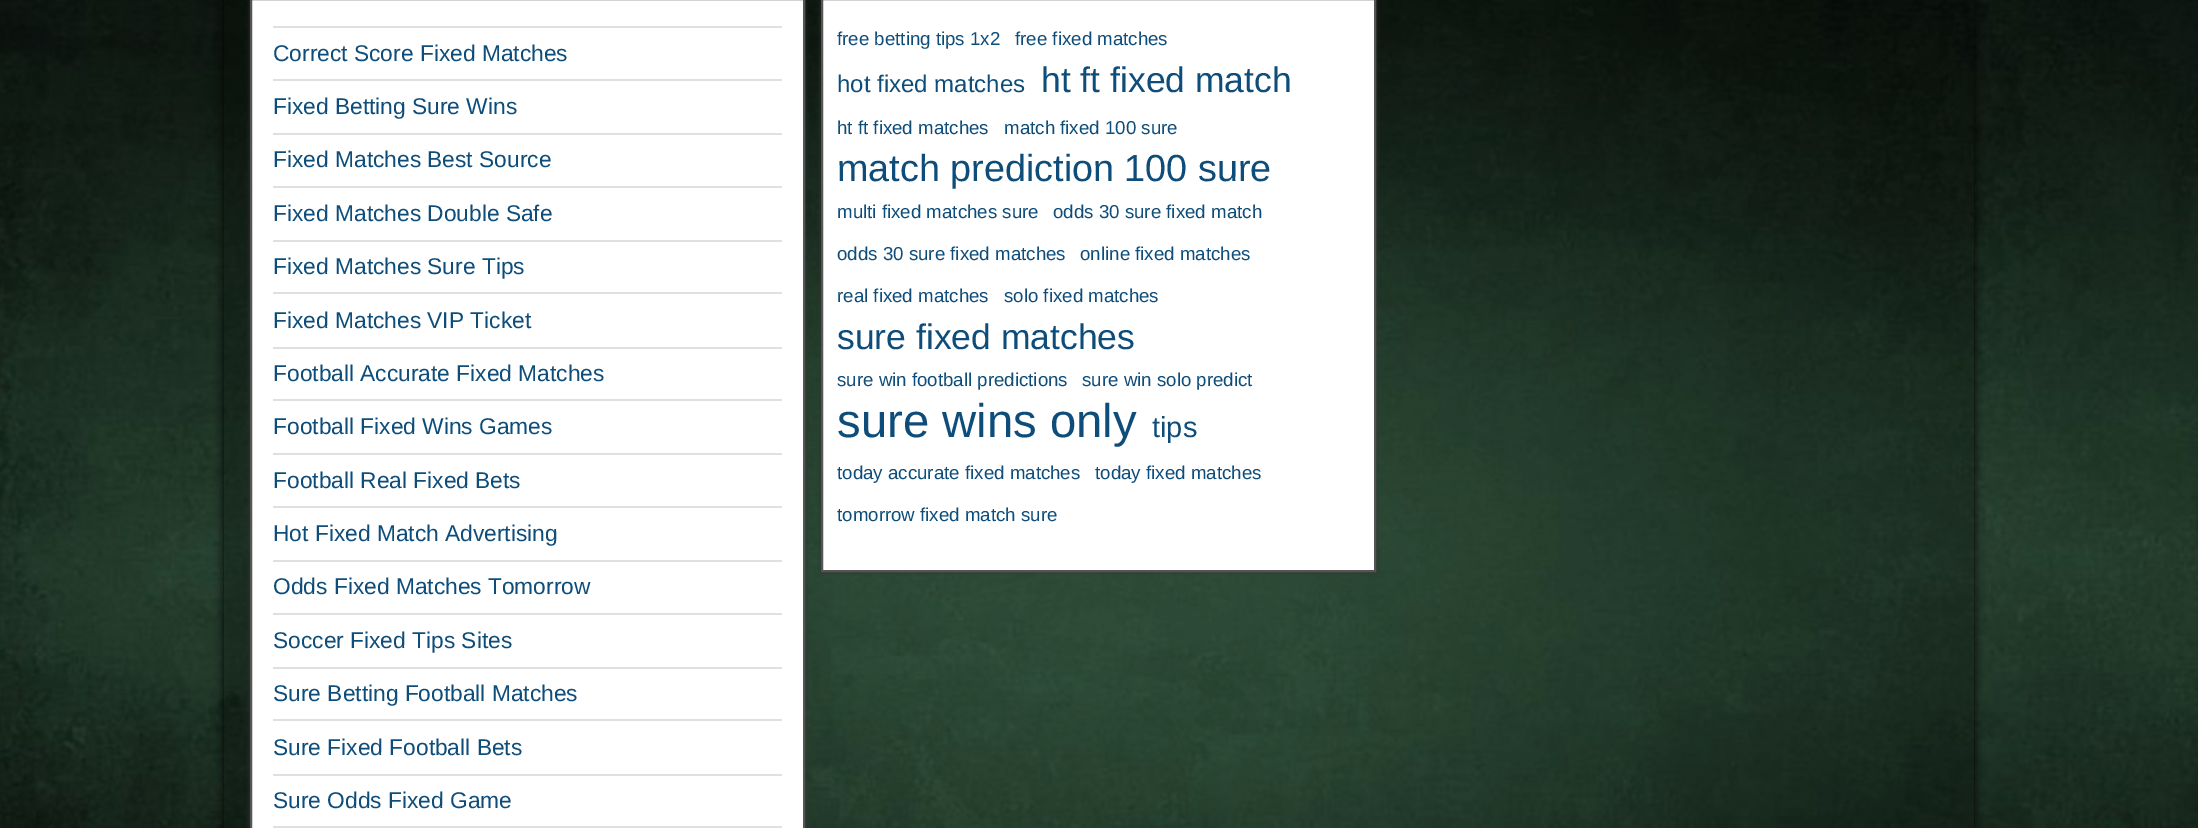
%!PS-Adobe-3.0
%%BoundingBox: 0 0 2198 828
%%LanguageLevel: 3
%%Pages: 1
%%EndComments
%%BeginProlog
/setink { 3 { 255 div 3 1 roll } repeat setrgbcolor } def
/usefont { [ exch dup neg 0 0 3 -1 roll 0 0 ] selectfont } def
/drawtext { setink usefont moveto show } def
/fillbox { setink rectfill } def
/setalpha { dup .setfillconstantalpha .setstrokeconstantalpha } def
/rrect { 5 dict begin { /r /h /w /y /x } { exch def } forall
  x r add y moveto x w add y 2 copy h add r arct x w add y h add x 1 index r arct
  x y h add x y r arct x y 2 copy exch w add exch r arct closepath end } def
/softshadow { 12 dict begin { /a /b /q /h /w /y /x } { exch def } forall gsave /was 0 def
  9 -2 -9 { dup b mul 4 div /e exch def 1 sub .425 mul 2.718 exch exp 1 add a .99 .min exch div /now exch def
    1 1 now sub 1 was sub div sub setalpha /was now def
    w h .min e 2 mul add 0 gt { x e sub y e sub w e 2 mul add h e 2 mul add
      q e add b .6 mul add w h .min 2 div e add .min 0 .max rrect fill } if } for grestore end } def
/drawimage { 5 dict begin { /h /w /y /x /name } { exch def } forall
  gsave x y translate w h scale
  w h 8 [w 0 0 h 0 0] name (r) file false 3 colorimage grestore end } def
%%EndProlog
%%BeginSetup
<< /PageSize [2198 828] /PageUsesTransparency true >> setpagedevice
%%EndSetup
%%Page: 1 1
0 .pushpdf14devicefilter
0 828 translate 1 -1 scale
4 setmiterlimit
0 0 2198 828 255 255 255 fillbox
(assets/img1.rgb) 0 0 2198 828 drawimage
gsave
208 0 moveto 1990 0 lineto 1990 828 lineto 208 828 lineto closepath 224 -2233 moveto 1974 -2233 lineto 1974 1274 lineto 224 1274 lineto closepath eoclip newpath
0 0 0 setink
224 -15 1750 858 0 5 1 softshadow
grestore
0.25 setalpha
224 0 1750 828 0 0 0 fillbox
1 setalpha
51 51 51 setink
250 -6 555 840 0 2 1 softshadow
255 255 255 setink
251 -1 moveto 804 -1 lineto 804 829 lineto 251 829 lineto closepath gsave fill grestore
85 85 85 setink
2 setlinewidth
stroke
273 26 509 2 224 224 224 fillbox
273 79 509 2 224 224 224 fillbox
(Correct Score Fixed Matches) 273 61 /LiberationSans-Regular 22.75 14 77 122 drawtext
273 133 509 2 224 224 224 fillbox
(Fixed Betting Sure Wins) 273 114 /LiberationSans-Regular 22.75 14 77 122 drawtext
273 186 509 2 224 224 224 fillbox
(Fixed Matches Best Source) 273 167 /LiberationSans-Regular 22.75 14 77 122 drawtext
273 240 509 2 224 224 224 fillbox
(Fixed Matches Double Safe) 273 221 /LiberationSans-Regular 22.75 14 77 122 drawtext
273 292 509 2 224 224 224 fillbox
(Fixed Matches Sure Tips) 273 274 /LiberationSans-Regular 22.75 14 77 122 drawtext
273 347 509 2 224 224 224 fillbox
(Fixed Matches VIP Ticket) 273 328 /LiberationSans-Regular 22.75 14 77 122 drawtext
273 399 509 2 224 224 224 fillbox
(Football Accurate Fixed Matches) 273 381 /LiberationSans-Regular 22.75 14 77 122 drawtext
273 453 509 2 224 224 224 fillbox
(Football Fixed Wins Games) 273 434 /LiberationSans-Regular 22.75 14 77 122 drawtext
273 506 509 2 224 224 224 fillbox
(Football Real Fixed Bets) 273 488 /LiberationSans-Regular 22.75 14 77 122 drawtext
273 560 509 2 224 224 224 fillbox
(Hot Fixed Match Advertising) 273 541 /LiberationSans-Regular 22.75 14 77 122 drawtext
273 613 509 2 224 224 224 fillbox
(Odds Fixed Matches Tomorrow) 273 594 /LiberationSans-Regular 22.75 14 77 122 drawtext
273 667 509 2 224 224 224 fillbox
(Soccer Fixed Tips Sites) 273 648 /LiberationSans-Regular 22.75 14 77 122 drawtext
273 719 509 2 224 224 224 fillbox
(Sure Betting Football Matches) 273 701 /LiberationSans-Regular 22.75 14 77 122 drawtext
273 774 509 2 224 224 224 fillbox
(Sure Fixed Football Bets) 273 755 /LiberationSans-Regular 22.75 14 77 122 drawtext
273 826 509 2 224 224 224 fillbox
(Sure Odds Fixed Game) 273 808 /LiberationSans-Regular 22.75 14 77 122 drawtext
51 51 51 setink
821 -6 555 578 0 2 1 softshadow
255 255 255 setink
822 -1 moveto 1375 -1 lineto 1375 571 lineto 822 571 lineto closepath gsave fill grestore
85 85 85 setink
stroke
(free betting tips 1x2) 837 45 /LiberationSans-Regular 18.7 14 77 122 drawtext
(free fixed matches) 1015 45 /LiberationSans-Regular 18.7 14 77 122 drawtext
(hot fixed matches) 837 92 /LiberationSans-Regular 24 14 77 122 drawtext
(ht ft fixed match) 1041 92 /LiberationSans-Regular 35.5 14 77 122 drawtext
(ht ft fixed matches) 837 134 /LiberationSans-Regular 18.7 14 77 122 drawtext
(match fixed 100 sure) 1004 134 /LiberationSans-Regular 18.7 14 77 122 drawtext
(match prediction 100 sure) 837 181 /LiberationSans-Regular 37.75 14 77 122 drawtext
(multi fixed matches sure) 837 218 /LiberationSans-Regular 18.7 14 77 122 drawtext
(odds 30 sure fixed match) 1053 218 /LiberationSans-Regular 18.7 14 77 122 drawtext
(odds 30 sure fixed matches) 837 260 /LiberationSans-Regular 18.7 14 77 122 drawtext
(online fixed matches) 1080 260 /LiberationSans-Regular 18.7 14 77 122 drawtext
(real fixed matches) 837 302 /LiberationSans-Regular 18.7 14 77 122 drawtext
(solo fixed matches) 1004 302 /LiberationSans-Regular 18.7 14 77 122 drawtext
(sure fixed matches) 837 349 /LiberationSans-Regular 35.5 14 77 122 drawtext
(sure win football predictions) 837 386 /LiberationSans-Regular 18.7 14 77 122 drawtext
(sure win solo predict) 1082 386 /LiberationSans-Regular 18.7 14 77 122 drawtext
(sure wins only) 837 437 /LiberationSans-Regular 47.25 14 77 122 drawtext
(tips) 1152 437 /LiberationSans-Regular 29 14 77 122 drawtext
(today accurate fixed matches) 837 479 /LiberationSans-Regular 18.7 14 77 122 drawtext
(today fixed matches) 1095 479 /LiberationSans-Regular 18.7 14 77 122 drawtext
(tomorrow fixed match sure) 837 521 /LiberationSans-Regular 18.7 14 77 122 drawtext
.poppdf14devicefilter showpage
%%EOF
